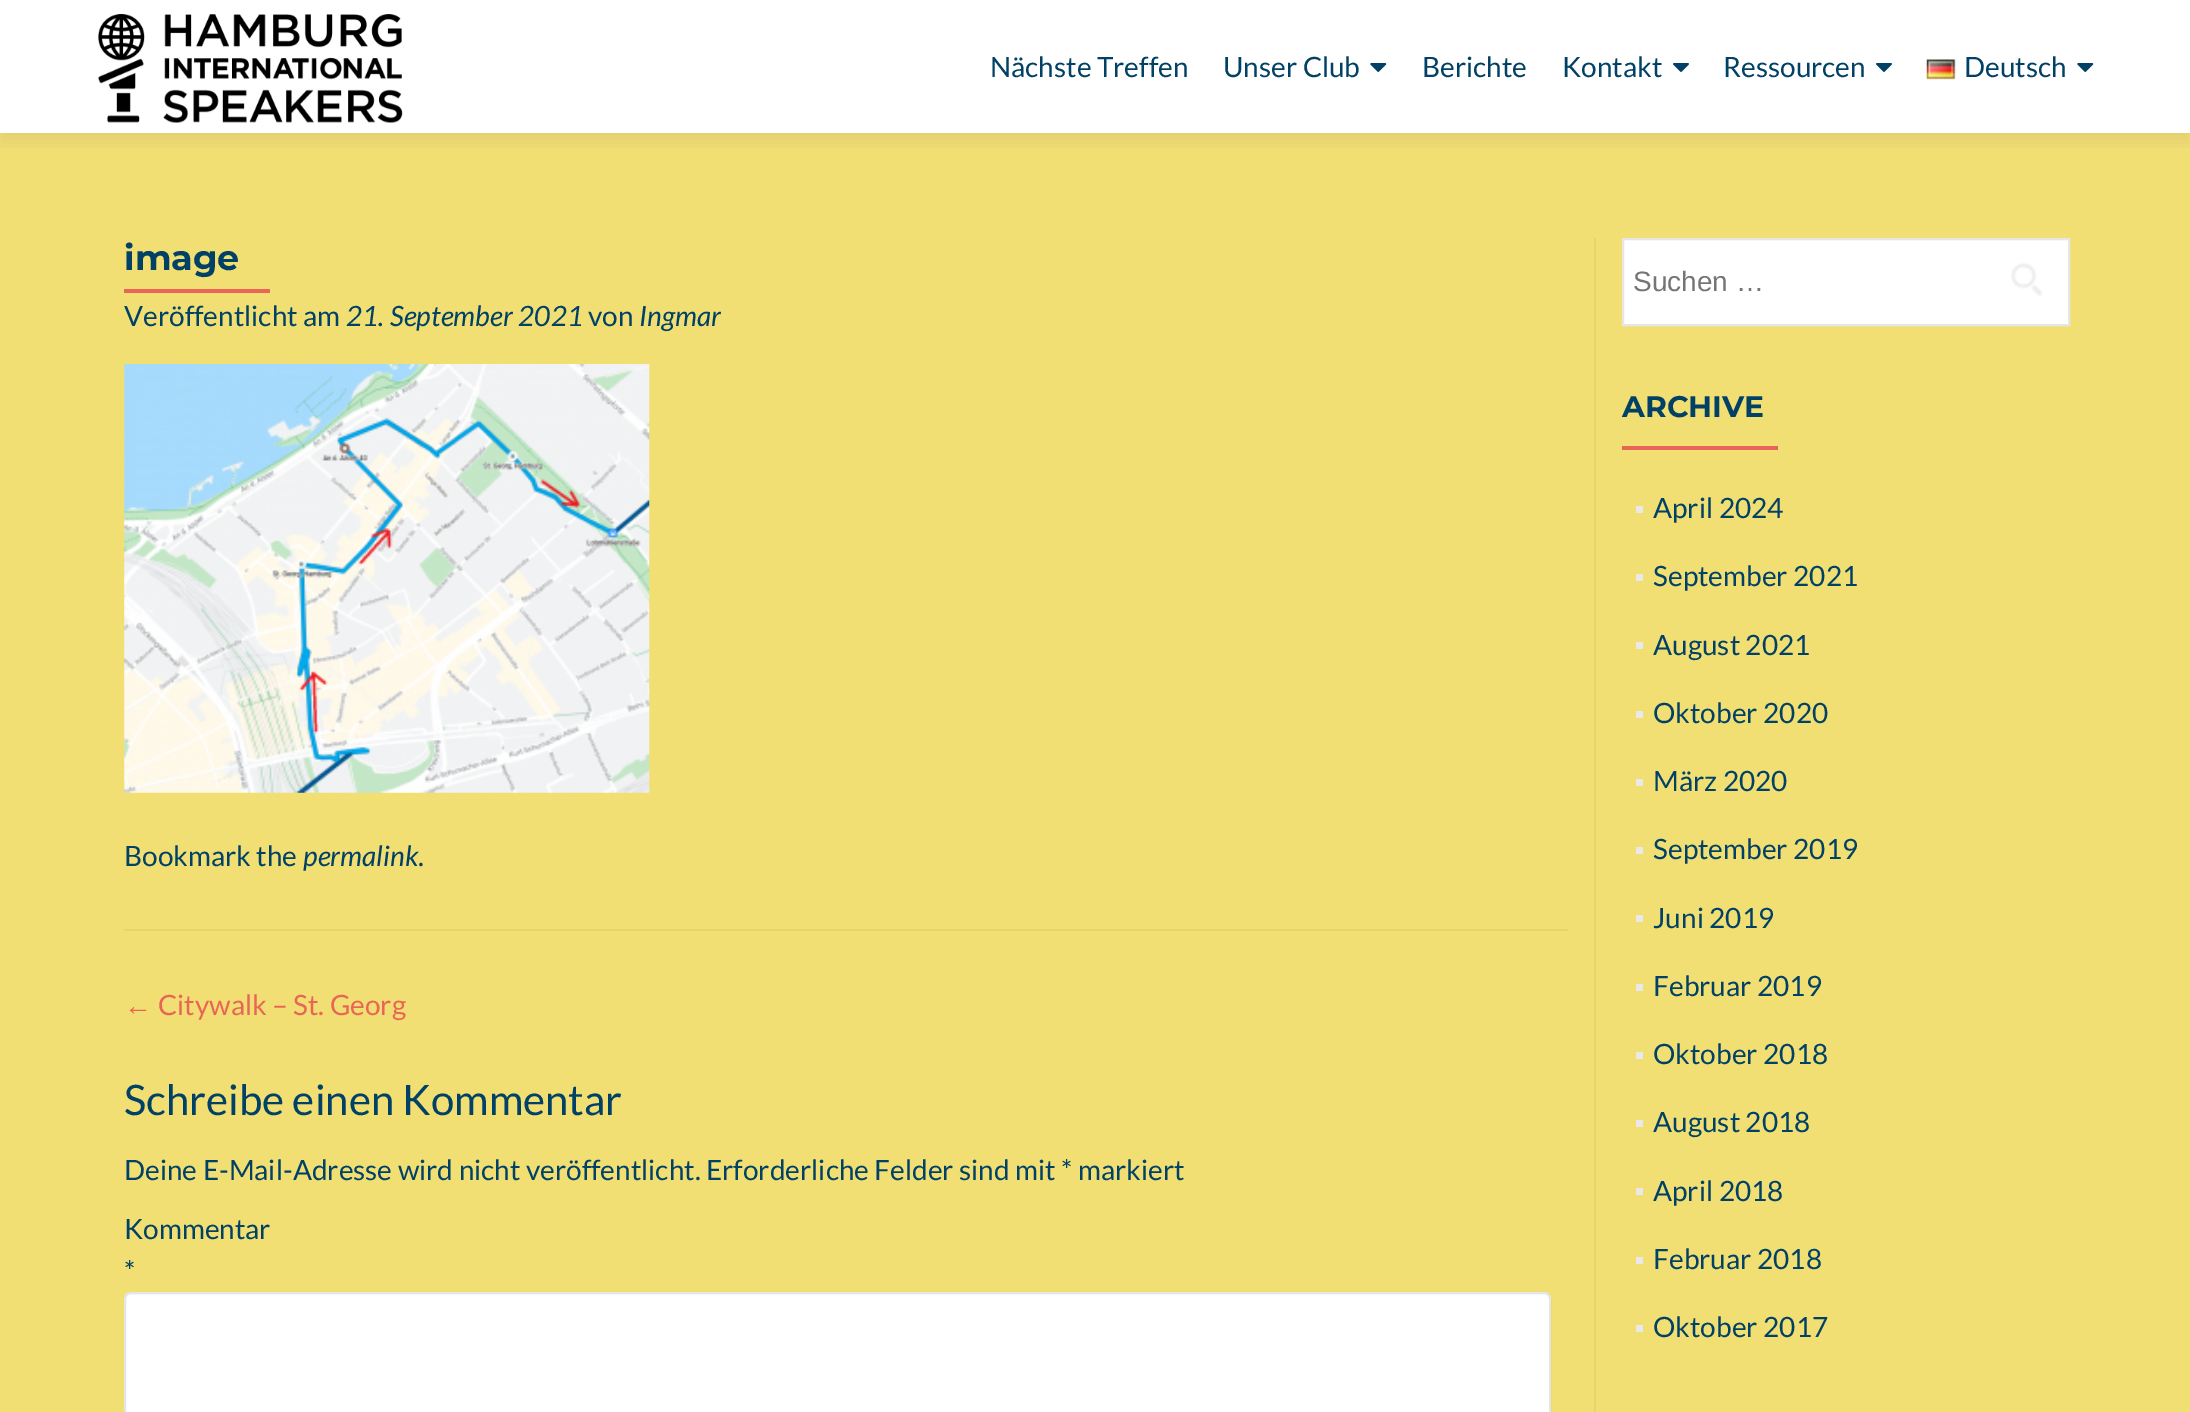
%!PS-Adobe-3.0
%%BoundingBox: 0 0 2190 1412
%%LanguageLevel: 3
%%Pages: 1
%%EndComments
%%BeginProlog
/setink { 3 { 255 div 3 1 roll } repeat setrgbcolor } def
/usefont { [ exch dup neg 0 0 3 -1 roll 0 0 ] selectfont } def
/drawtext { setink usefont moveto show } def
/fillbox { setink rectfill } def
/setalpha { dup .setfillconstantalpha .setstrokeconstantalpha } def
/rrect { 5 dict begin { /r /h /w /y /x } { exch def } forall
  x r add y moveto x w add y 2 copy h add r arct x w add y h add x 1 index r arct
  x y h add x y r arct x y 2 copy exch w add exch r arct closepath end } def
/softshadow { 12 dict begin { /a /b /q /h /w /y /x } { exch def } forall gsave /was 0 def
  9 -2 -9 { dup b mul 4 div /e exch def 1 sub .425 mul 2.718 exch exp 1 add a .99 .min exch div /now exch def
    1 1 now sub 1 was sub div sub setalpha /was now def
    w h .min e 2 mul add 0 gt { x e sub y e sub w e 2 mul add h e 2 mul add
      q e add b .6 mul add w h .min 2 div e add .min 0 .max rrect fill } if } for grestore end } def
/drawimage { 5 dict begin { /h /w /y /x /name } { exch def } forall
  gsave x y translate w h scale
  w h 8 [w 0 0 h 0 0] name (r) file false 3 colorimage grestore end } def
%%EndProlog
%%BeginSetup
<< /PageSize [2190 1412] /PageUsesTransparency true >> setpagedevice
%%EndSetup
%%Page: 1 1
0 .pushpdf14devicefilter
0 1412 translate 1 -1 scale
4 setmiterlimit
0 0 2190 1412 255 255 255 fillbox
0 133 2190 1279 242 223 116 fillbox
gsave
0 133 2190 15 rectclip
50 50 50 setink
0 9 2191 133 0 9.5 0.08 softshadow
grestore
(assets/img1.rgb) 98 14 305 109 drawimage
(Nächste Treffen) 990 77 /Lato-Regular 28 0 65 101 drawtext
(Unser Club) 1223 77 /Lato-Regular 28 0 65 101 drawtext
(assets/img2.rgb) 1370 63 17 9 drawimage
(Berichte) 1422 77 /Lato-Regular 28 0 65 101 drawtext
(Kontakt) 1562 77 /Lato-Regular 28 0 65 101 drawtext
(assets/img3.rgb) 1673 63 16 9 drawimage
(Ressourcen) 1723 77 /Lato-Regular 28 0 65 101 drawtext
(assets/img3.rgb) 1876 63 16 9 drawimage
(assets/img4.rgb) 1926 59 30 21 drawimage
(Deutsch) 1964 77 /Lato-Regular 28 0 65 101 drawtext
(assets/img2.rgb) 2077 63 17 9 drawimage
124 929 1444 2 230 212 110 fillbox
(image) 124 270 /Montserrat-Thin 35 0 65 101 drawtext
124 289 146 4 233 102 86 fillbox
(Veröffentlicht am) 124 326 /Lato-Regular 28 0 65 101 drawtext
(21. September 2021) 346 326 /Lato-Italic 28 0 65 101 drawtext
(von) 588 326 /Lato-Regular 28 0 65 101 drawtext
(Ingmar) 639 326 /Lato-Italic 28 0 65 101 drawtext
(assets/img5.rgb) 124 364 526 429 drawimage
(Bookmark the) 124 866 /Lato-Regular 28 0 65 101 drawtext
(permalink) 303 866 /Lato-Italic 28 0 65 101 drawtext
(.) 418 866 /Lato-Regular 28 0 65 101 drawtext
(←) 124 1015 /LiberationSans-Regular 28 233 102 86 drawtext
(Citywalk – St. Georg) 158 1015 /Lato-Regular 28 233 102 86 drawtext
(Schreibe einen Kommentar) 124 1115 /Lato-Regular 42 0 65 101 drawtext
(Deine E-Mail-Adresse wird nicht veröffentlicht. Erforderliche Felder sind mit * markiert) 124 1180 /Lato-Regular 28 0 65 101 drawtext
(Kommentar) 124 1239 /Lato-Regular 28 0 65 101 drawtext
(*) 124 1281 /Lato-Regular 28 0 65 101 drawtext
255 255 255 setink
124 1292 1427 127 7 rrect fill
0.1 setalpha
0 0 0 setink
2 setlinewidth
125 1293 1425 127 6 rrect stroke
1 setalpha
1594 238 2 1174 230 212 110 fillbox
255 255 255 setink
1623 239 moveto 2069 239 lineto 2069 325 lineto 1623 325 lineto closepath gsave fill grestore
230 230 230 setink
stroke
(Suchen …) 1633 291 /LiberationSans-Regular 28 117 117 117 drawtext
(assets/img6.rgb) 2011 262 31 34 drawimage
(ARCHIVE) 1622 417 /Montserrat-Thin 29.75 0 65 101 drawtext
1622 446 156 4 233 102 86 fillbox
1636 506 7 7 233 233 233 fillbox
(April 2024) 1653 518 /Lato-Regular 28 0 65 101 drawtext
1636 574 7 7 233 233 233 fillbox
(September 2021) 1653 586 /Lato-Regular 28 0 65 101 drawtext
1636 642 7 7 233 233 233 fillbox
(August 2021) 1653 655 /Lato-Regular 28 0 65 101 drawtext
1636 711 7 7 233 233 233 fillbox
(Oktober 2020) 1653 723 /Lato-Regular 28 0 65 101 drawtext
1636 779 7 7 233 233 233 fillbox
(März 2020) 1653 791 /Lato-Regular 28 0 65 101 drawtext
1636 847 7 7 233 233 233 fillbox
(September 2019) 1653 859 /Lato-Regular 28 0 65 101 drawtext
1636 915 7 7 233 233 233 fillbox
(Juni 2019) 1653 928 /Lato-Regular 28 0 65 101 drawtext
1636 984 7 7 233 233 233 fillbox
(Februar 2019) 1653 996 /Lato-Regular 28 0 65 101 drawtext
1636 1052 7 7 233 233 233 fillbox
(Oktober 2018) 1653 1064 /Lato-Regular 28 0 65 101 drawtext
1636 1120 7 7 233 233 233 fillbox
(August 2018) 1653 1132 /Lato-Regular 28 0 65 101 drawtext
1636 1188 7 7 233 233 233 fillbox
(April 2018) 1653 1201 /Lato-Regular 28 0 65 101 drawtext
1636 1257 7 7 233 233 233 fillbox
(Februar 2018) 1653 1269 /Lato-Regular 28 0 65 101 drawtext
1636 1325 7 7 233 233 233 fillbox
(Oktober 2017) 1653 1337 /Lato-Regular 28 0 65 101 drawtext
.poppdf14devicefilter showpage
%%EOF
